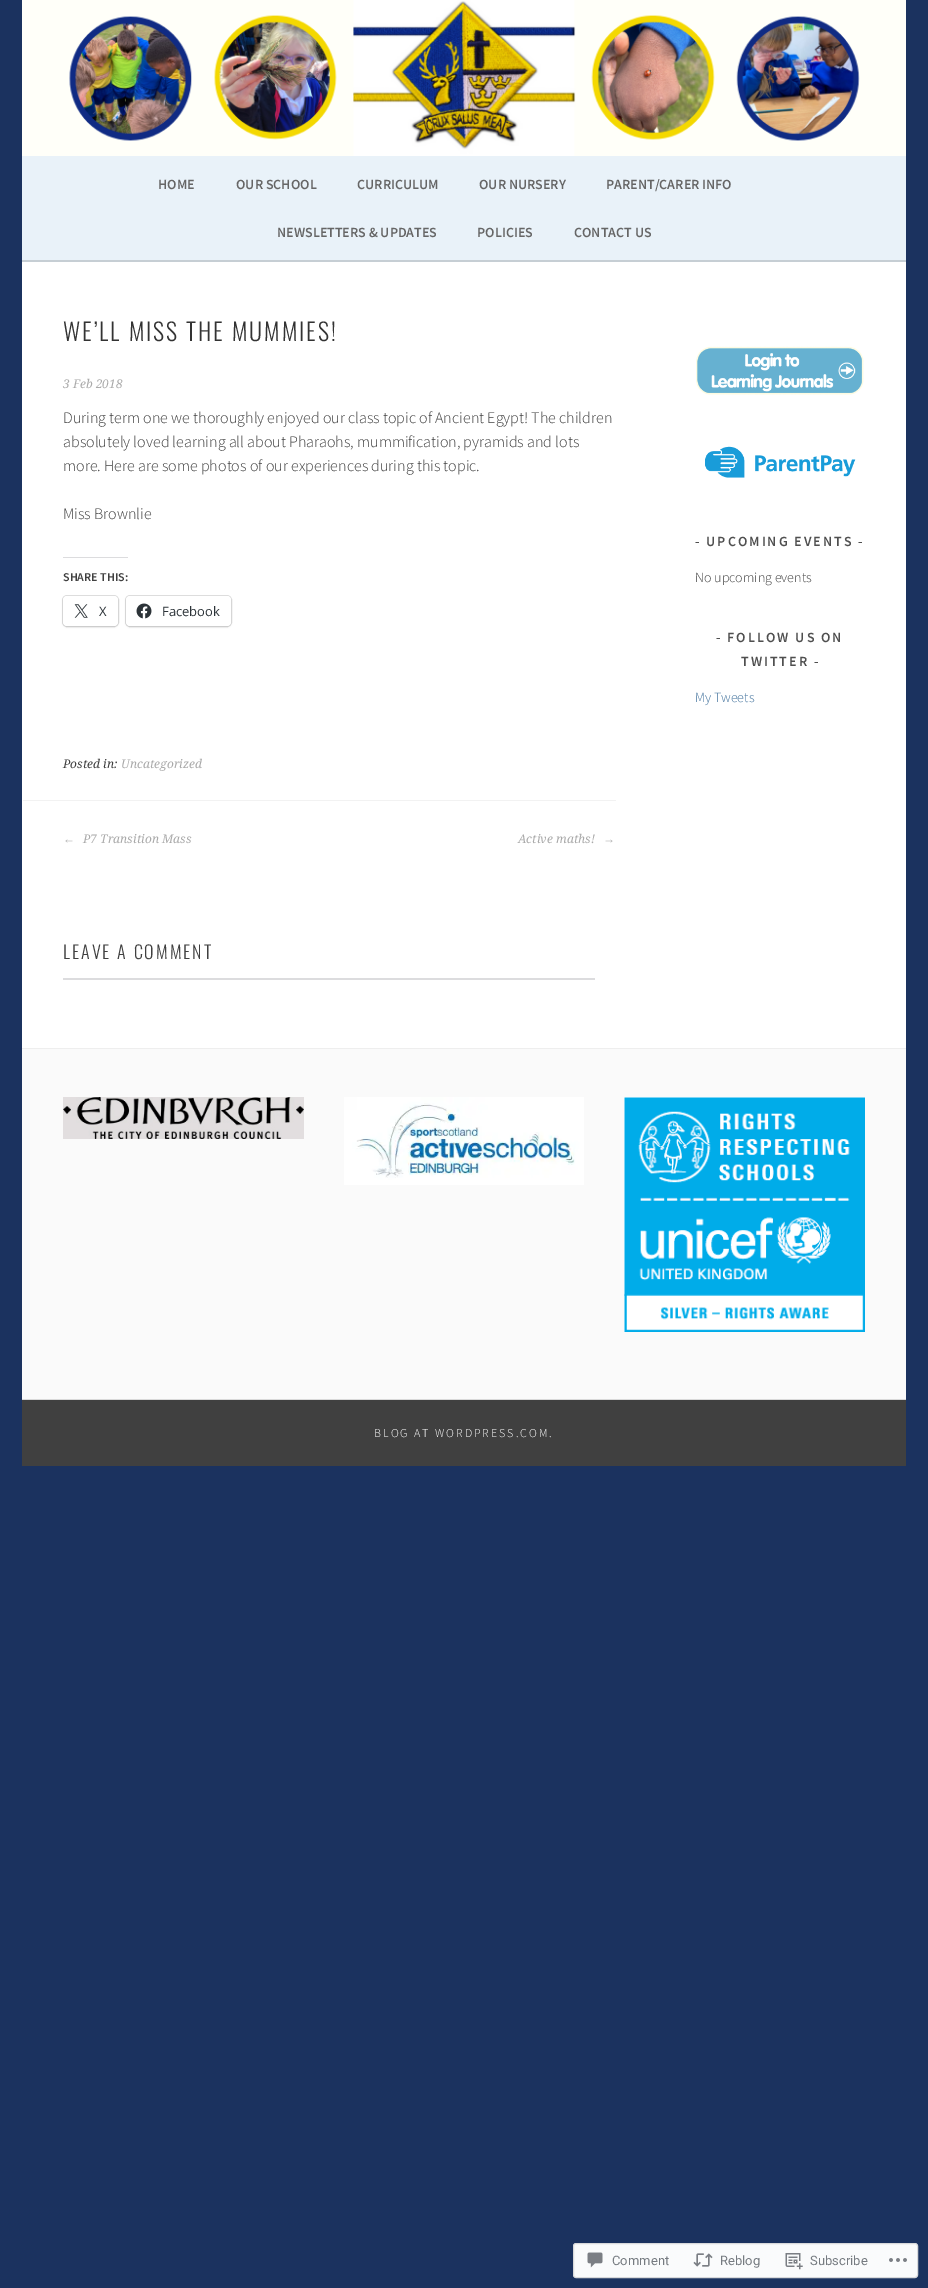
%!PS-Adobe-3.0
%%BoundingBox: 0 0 928 2288
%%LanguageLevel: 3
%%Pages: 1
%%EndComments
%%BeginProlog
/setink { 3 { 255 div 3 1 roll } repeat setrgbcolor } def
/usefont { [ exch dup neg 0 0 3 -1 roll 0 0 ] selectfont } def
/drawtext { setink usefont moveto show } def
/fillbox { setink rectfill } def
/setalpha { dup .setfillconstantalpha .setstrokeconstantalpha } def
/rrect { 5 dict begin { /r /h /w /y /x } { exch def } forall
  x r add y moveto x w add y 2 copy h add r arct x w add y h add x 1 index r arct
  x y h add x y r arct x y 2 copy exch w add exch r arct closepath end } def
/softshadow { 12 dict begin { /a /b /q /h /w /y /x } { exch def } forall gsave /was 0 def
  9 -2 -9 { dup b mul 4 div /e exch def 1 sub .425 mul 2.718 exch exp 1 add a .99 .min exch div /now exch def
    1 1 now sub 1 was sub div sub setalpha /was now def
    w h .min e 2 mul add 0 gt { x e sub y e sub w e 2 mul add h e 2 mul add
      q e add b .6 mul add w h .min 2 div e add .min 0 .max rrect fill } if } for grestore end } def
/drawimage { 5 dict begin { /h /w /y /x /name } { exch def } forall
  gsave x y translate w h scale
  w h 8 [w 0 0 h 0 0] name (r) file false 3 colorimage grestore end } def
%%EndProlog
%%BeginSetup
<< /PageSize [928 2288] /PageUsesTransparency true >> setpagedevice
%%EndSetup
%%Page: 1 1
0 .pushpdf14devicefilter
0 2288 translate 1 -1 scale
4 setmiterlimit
0 0 928 2288 27 50 95 fillbox
(assets/img1.rgb) 22 0 884 156 drawimage
22 156 884 104 233 242 249 fillbox
22 260 884 2 198 206 212 fillbox
(HOME) 158 189 /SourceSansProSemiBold-SemiBold 14 102 102 102 drawtext
(OUR SCHOOL) 236 189 /SourceSansProSemiBold-SemiBold 14 102 102 102 drawtext
(CURRICULUM) 357 189 /SourceSansProSemiBold-SemiBold 14 102 102 102 drawtext
(OUR NURSERY) 479 189 /SourceSansProSemiBold-SemiBold 14 102 102 102 drawtext
(PARENT/CARER INFO) 606 189 /SourceSansProSemiBold-SemiBold 14 102 102 102 drawtext
(NEWSLETTERS & UPDATES) 277 237 /SourceSansProSemiBold-SemiBold 14 102 102 102 drawtext
(POLICIES) 477 237 /SourceSansProSemiBold-SemiBold 14 102 102 102 drawtext
(CONTACT US) 574 237 /SourceSansProSemiBold-SemiBold 14 102 102 102 drawtext
22 262 884 786 255 255 255 fillbox
/Oswald-Light 24 usefont
51 51 51 setink
63 341 moveto 2 0 (WE’LL MISS THE MUMMIES!) ashow
(3 Feb 2018) 63 388 /DroidSerif-Italic 12 170 170 170 drawtext
(During term one we thoroughly enjoyed our class topic of Ancient Egypt! The children) 63 423 /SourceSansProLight-Light 16 64 64 64 drawtext
(absolutely loved learning all about Pharaohs, mummification, pyramids and lots) 63 447 /SourceSansProLight-Light 16 64 64 64 drawtext
(more. Here are some photos of our experiences during this topic.) 63 471 /SourceSansProLight-Light 16 64 64 64 drawtext
(Miss Brownlie) 63 519 /SourceSansProLight-Light 16 64 64 64 drawtext
63 557 65 1 220 220 222 fillbox
(SHARE THIS:) 63 581 /SourceSansProSemiBold-SemiBold 12 64 64 64 drawtext
224 224 224 setink
62.5 595.5 56 31 4.5 rrect stroke
0 0 0 setink
63 597 55 30 4 1 0.12 softshadow
255 255 255 setink
63 596 55 30 4 rrect fill
(assets/img2.rgb) 74 604 14 14 drawimage
(X) 99 616 /OpenSans-Regular 13 44 51 56 drawtext
224 224 224 setink
125.5 595.5 106 31 4.5 rrect stroke
0 0 0 setink
126 597 105 30 4 1 0.12 softshadow
255 255 255 setink
126 596 105 30 4 rrect fill
(assets/img3.rgb) 136 603 16 16 drawimage
(Facebook) 162 616 /OpenSans-Regular 13 44 51 56 drawtext
(Posted in:) 63 768 /DroidSerif-Italic 12 64 64 64 drawtext
(Uncategorized) 121 768 /DroidSerif-Italic 12 170 170 170 drawtext
23 800 593 1 242 242 242 fillbox
(←) 63 843 /LiberationSerif-Italic 12 170 170 170 drawtext
(P7 Transition Mass) 83 843 /DroidSerif-Italic 12 170 170 170 drawtext
(Active maths!) 518 843 /DroidSerif-Italic 12 170 170 170 drawtext
(→) 603 843 /LiberationSerif-Italic 12 170 170 170 drawtext
/Oswald-Light 18 usefont
64 64 64 setink
63 959 moveto 2 0 (LEAVE A COMMENT) ashow
63 978 532 2 220 220 222 fillbox
(assets/img4.rgb) 696 346 168 49 drawimage
(assets/img5.rgb) 705 446 151 32 drawimage
/SourceSansProSemiBold-SemiBold 14 usefont
79 79 79 setink
695 546 moveto 2 0 (- UPCOMING EVENTS -) ashow
(No upcoming events) 695 582 /SourceSansProLight-Light 14 64 64 64 drawtext
/SourceSansProSemiBold-SemiBold 14 usefont
79 79 79 setink
716 642 moveto 2 0 (- FOLLOW US ON) ashow
741 666 moveto 2 0 (TWITTER -) ashow
(My Tweets) 695 702 /SourceSansProLight-Light 14 67 115 157 drawtext
22 1049 884 350 250 250 250 fillbox
22 1048 884 1 238 238 238 fillbox
(assets/img6.rgb) 63 1097 241 42 drawimage
(assets/img7.rgb) 344 1097 240 88 drawimage
(assets/img8.rgb) 624 1097 241 235 drawimage
22 1400 884 66 64 64 64 fillbox
22 1399 884 1 217 217 217 fillbox
/SourceSansProLight-Light 12 usefont
255 255 255 setink
374 1437 moveto 2 0 (BLOG AT WORDPRESS.COM.) ashow
250 251 252 setink
573.5 2243.5 344 34 2.5 rrect gsave fill grestore
216 217 219 setink
stroke
(assets/img9.rgb) 587 2252 16 16 drawimage
(Comment) 612 2265 /Roboto-Regular 13 118 123 129 drawtext
(assets/img10.rgb) 693 2253 20 14 drawimage
(Reblog) 720 2265 /Roboto-Regular 13 118 123 129 drawtext
(assets/img11.rgb) 785 2253 18 17 drawimage
(Subscribe) 810 2265 /Roboto-Regular 13 118 123 129 drawtext
(assets/img12.rgb) 889 2258 18 4 drawimage
.poppdf14devicefilter showpage
%%EOF
